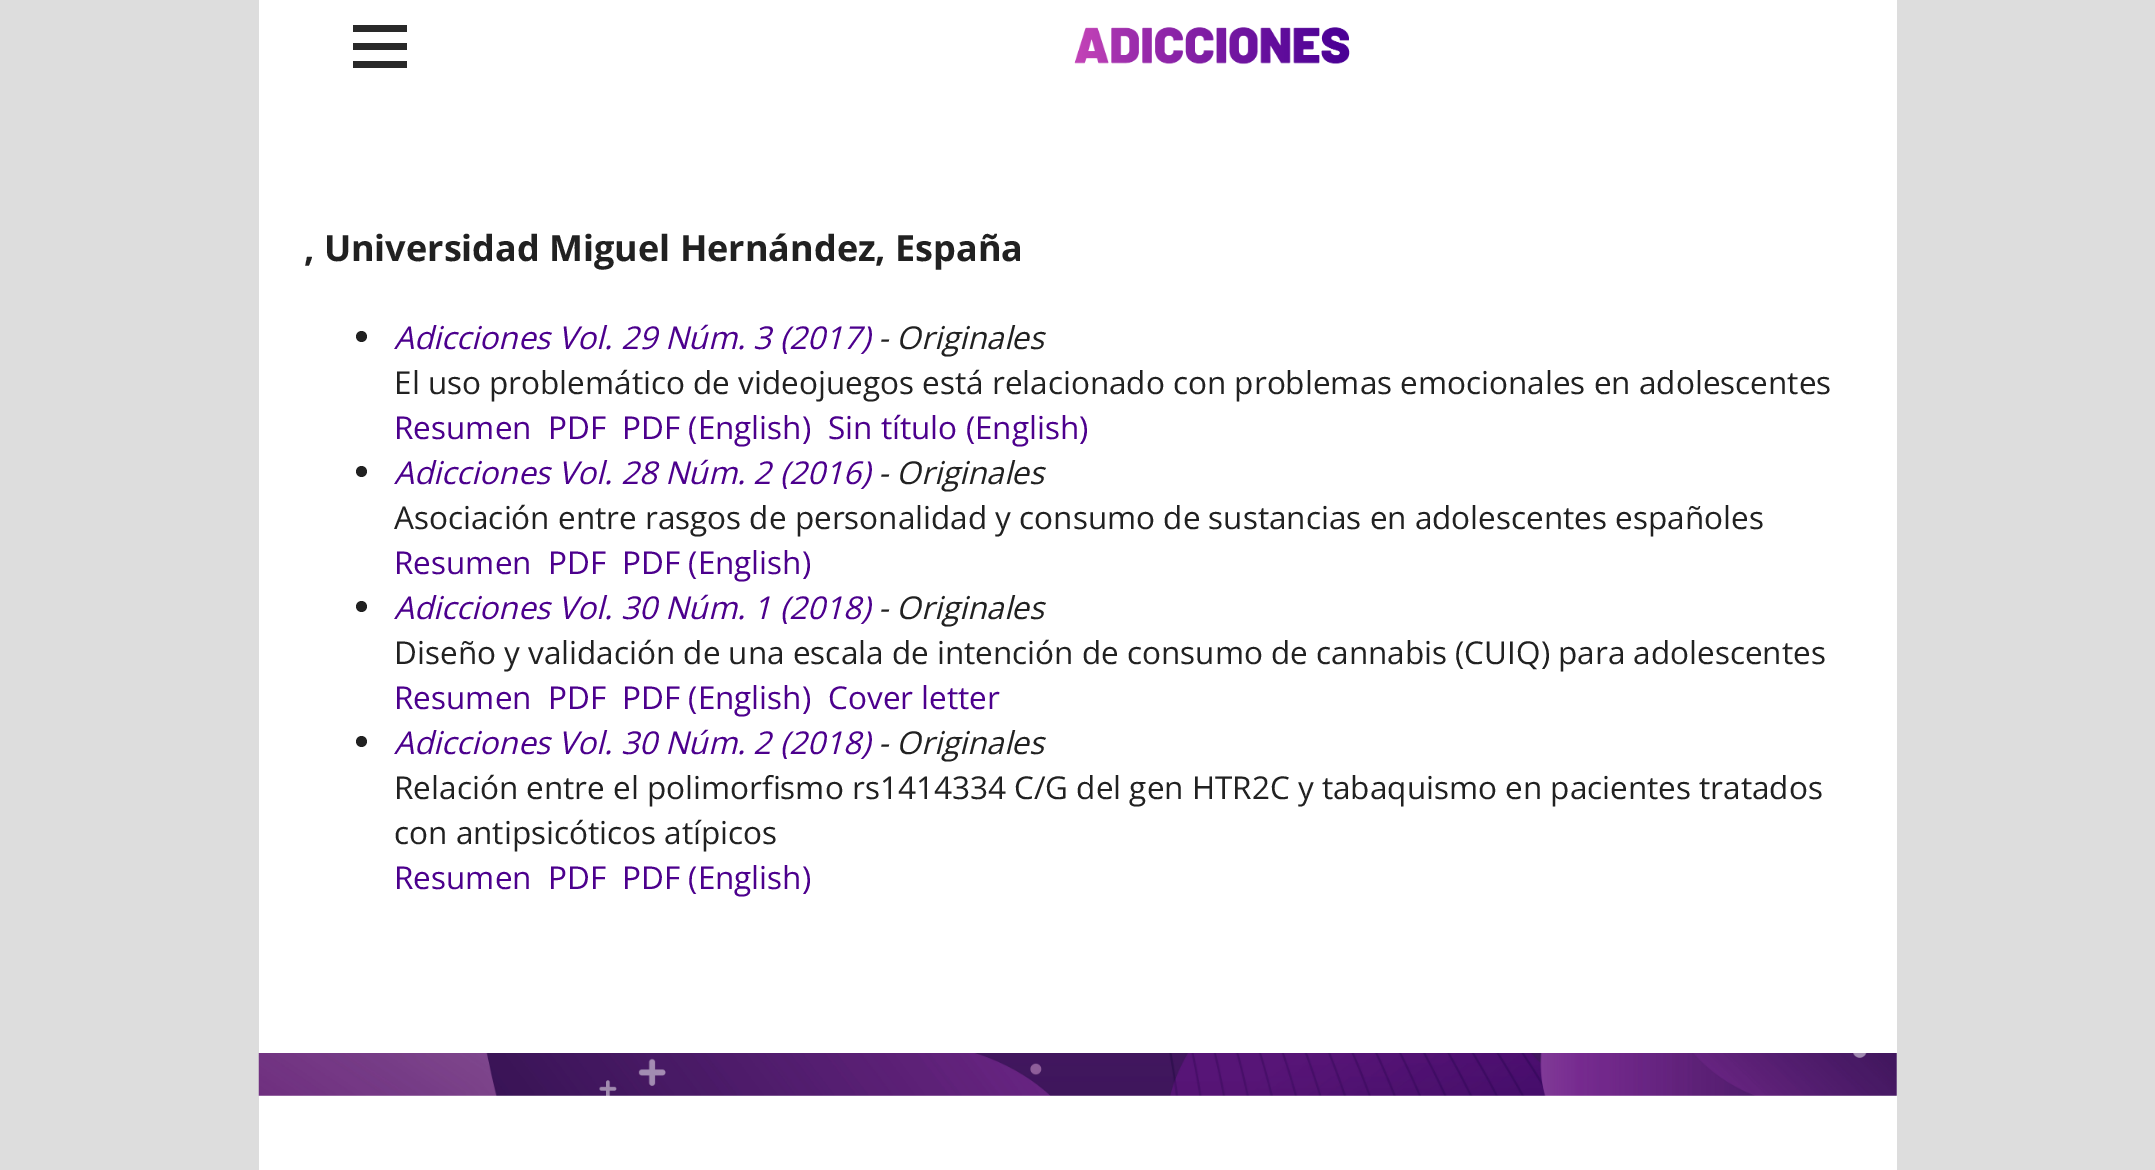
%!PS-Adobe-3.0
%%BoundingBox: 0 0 2155 1170
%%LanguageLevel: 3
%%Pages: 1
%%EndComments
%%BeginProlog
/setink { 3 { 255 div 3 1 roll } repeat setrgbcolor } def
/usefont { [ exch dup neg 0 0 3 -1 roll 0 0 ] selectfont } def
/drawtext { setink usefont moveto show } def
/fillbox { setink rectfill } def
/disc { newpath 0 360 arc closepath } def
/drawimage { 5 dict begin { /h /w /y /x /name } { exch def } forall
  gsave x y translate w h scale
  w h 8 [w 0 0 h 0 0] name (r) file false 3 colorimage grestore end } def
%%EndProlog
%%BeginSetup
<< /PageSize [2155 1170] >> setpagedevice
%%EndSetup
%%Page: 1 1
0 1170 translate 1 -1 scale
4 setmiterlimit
0 0 2155 1170 221 221 221 fillbox
259 0 1638 1170 255 255 255 fillbox
353 61 54 7 41 41 41 fillbox
353 25 54 7 41 41 41 fillbox
353 43 54 7 41 41 41 fillbox
(assets/img1.rgb) 1074 27 276 38 drawimage
(, Universidad Miguel Hernández, España) 304 261 /OpenSans-Bold 36 33 33 33 drawtext
361.5 336.5 5.5 disc fill
(Adicciones Vol. 29 Núm. 3 \(2017\)) 394 349 /OpenSans-Italic 31.5 76 0 141 drawtext
(- Originales) 878 349 /OpenSans-Italic 31.5 33 33 33 drawtext
(El uso problemático de videojuegos está relacionado con problemas emocionales en adolescentes) 394 394 /OpenSans-Regular 31.5 33 33 33 drawtext
(Resumen) 394 439 /OpenSans-Regular 31.5 76 0 141 drawtext
(PDF) 548 439 /OpenSans-Regular 31.5 76 0 141 drawtext
(PDF \(English\)) 622 439 /OpenSans-Regular 31.5 76 0 141 drawtext
(Sin título \(English\)) 828 439 /OpenSans-Regular 31.5 76 0 141 drawtext
33 33 33 setink
361.5 471.5 5.5 disc fill
(Adicciones Vol. 28 Núm. 2 \(2016\)) 394 484 /OpenSans-Italic 31.5 76 0 141 drawtext
(- Originales) 878 484 /OpenSans-Italic 31.5 33 33 33 drawtext
(Asociación entre rasgos de personalidad y consumo de sustancias en adolescentes españoles) 394 529 /OpenSans-Regular 31.5 33 33 33 drawtext
(Resumen) 394 574 /OpenSans-Regular 31.5 76 0 141 drawtext
(PDF) 548 574 /OpenSans-Regular 31.5 76 0 141 drawtext
(PDF \(English\)) 622 574 /OpenSans-Regular 31.5 76 0 141 drawtext
33 33 33 setink
361.5 606.5 5.5 disc fill
(Adicciones Vol. 30 Núm. 1 \(2018\)) 394 619 /OpenSans-Italic 31.5 76 0 141 drawtext
(- Originales) 878 619 /OpenSans-Italic 31.5 33 33 33 drawtext
(Diseño y validación de una escala de intención de consumo de cannabis \(CUIQ\) para adolescentes) 394 664 /OpenSans-Regular 31.5 33 33 33 drawtext
(Resumen) 394 709 /OpenSans-Regular 31.5 76 0 141 drawtext
(PDF) 548 709 /OpenSans-Regular 31.5 76 0 141 drawtext
(PDF \(English\)) 622 709 /OpenSans-Regular 31.5 76 0 141 drawtext
(Cover letter) 828 709 /OpenSans-Regular 31.5 76 0 141 drawtext
33 33 33 setink
361.5 741.5 5.5 disc fill
(Adicciones Vol. 30 Núm. 2 \(2018\)) 394 754 /OpenSans-Italic 31.5 76 0 141 drawtext
(- Originales) 878 754 /OpenSans-Italic 31.5 33 33 33 drawtext
(Relación entre el polimorfismo rs1414334 C/G del gen HTR2C y tabaquismo en pacientes tratados) 394 799 /OpenSans-Regular 31.5 33 33 33 drawtext
(con antipsicóticos atípicos) 394 844 /OpenSans-Regular 31.5 33 33 33 drawtext
(Resumen) 394 889 /OpenSans-Regular 31.5 76 0 141 drawtext
(PDF) 548 889 /OpenSans-Regular 31.5 76 0 141 drawtext
(PDF \(English\)) 622 889 /OpenSans-Regular 31.5 76 0 141 drawtext
(assets/img2.rgb) 258 1053 1639 43 drawimage
showpage
%%EOF
